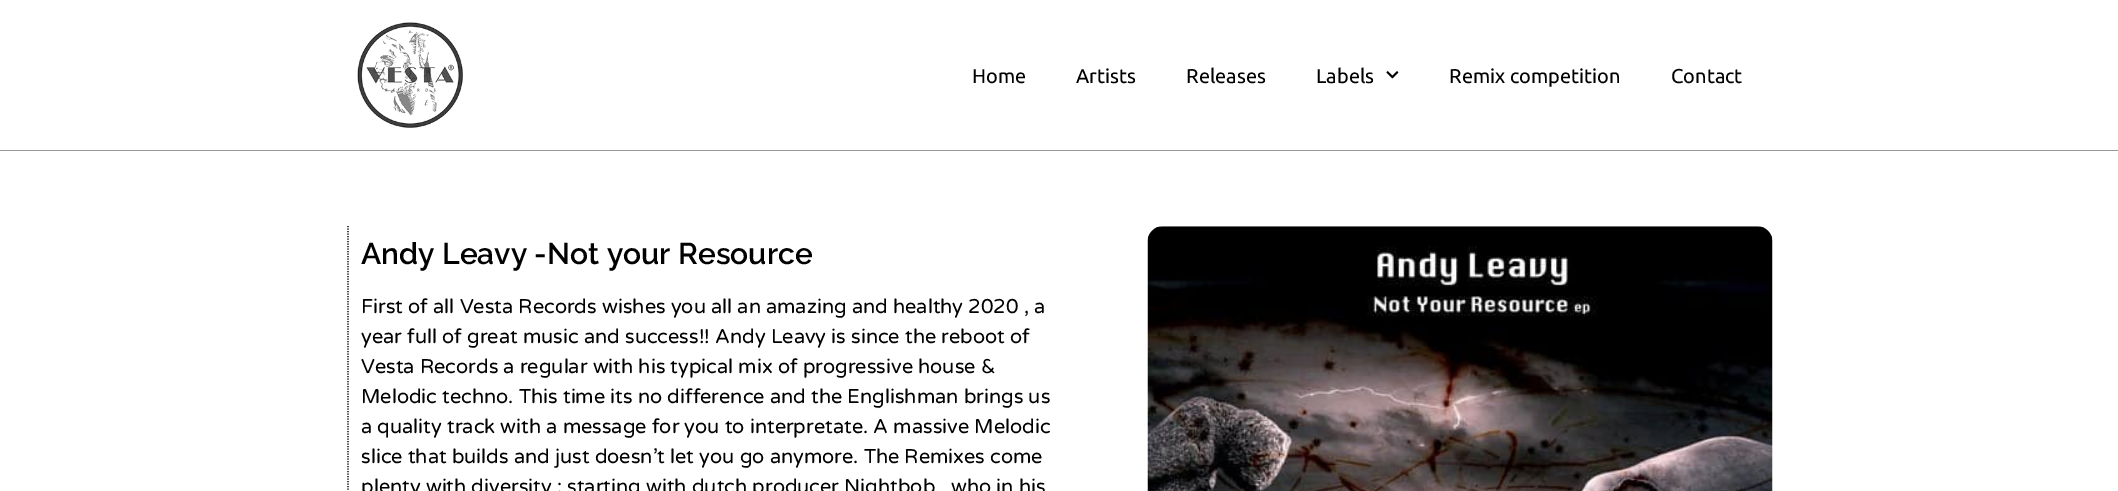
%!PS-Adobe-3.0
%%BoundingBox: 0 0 2118 491
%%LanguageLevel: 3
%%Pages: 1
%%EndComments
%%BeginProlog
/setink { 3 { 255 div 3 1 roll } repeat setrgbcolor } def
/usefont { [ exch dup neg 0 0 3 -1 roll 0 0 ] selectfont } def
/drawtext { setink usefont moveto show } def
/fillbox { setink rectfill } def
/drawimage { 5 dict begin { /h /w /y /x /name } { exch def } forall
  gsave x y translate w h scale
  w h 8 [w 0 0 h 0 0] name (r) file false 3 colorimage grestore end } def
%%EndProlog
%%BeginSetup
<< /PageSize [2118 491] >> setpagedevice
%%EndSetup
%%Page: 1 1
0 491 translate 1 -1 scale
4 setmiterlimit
0 0 2118 491 255 255 255 fillbox
0 150 2118 1 153 153 153 fillbox
(assets/img1.rgb) 357 22 106 106 drawimage
(Home) 972 83 /Ubuntu-Regular 20 0 0 0 drawtext
(Artists) 1076 83 /Ubuntu-Regular 20 0 0 0 drawtext
(Releases) 1186 83 /Ubuntu-Regular 20 0 0 0 drawtext
(Labels) 1316 83 /Ubuntu-Regular 20 0 0 0 drawtext
(assets/img2.rgb) 1386 71 13 8 drawimage
(Remix competition) 1449 83 /Ubuntu-Regular 20 0 0 0 drawtext
(Contact) 1671 83 /Ubuntu-Regular 20 0 0 0 drawtext
1.2 setlinewidth
[1.25 1.25] 0 setdash
348 226 moveto 348 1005 lineto stroke
(Andy Leavy -Not your Resource) 361 264 /Raleway-SemiBold 30 0 0 0 drawtext
(First of all Vesta Records wishes you all an amazing and healthy 2020 , a) 361 313 /VarelaRound-Regular 20 0 0 0 drawtext
(year full of great music and success!! Andy Leavy is since the reboot of) 361 343 /VarelaRound-Regular 20 0 0 0 drawtext
(Vesta Records a regular with his typical mix of progressive house &) 361 373 /VarelaRound-Regular 20 0 0 0 drawtext
(Melodic techno. This time its no difference and the Englishman brings us) 361 403 /VarelaRound-Regular 20 0 0 0 drawtext
(a quality track with a message for you to interpretate. A massive Melodic) 361 433 /VarelaRound-Regular 20 0 0 0 drawtext
(slice that builds and just doesn’t let you go anymore. The Remixes come) 361 463 /VarelaRound-Regular 20 0 0 0 drawtext
(plenty with diversity : starting with dutch producer Nightbob) 361 493 /VarelaRound-Regular 20 0 0 0 drawtext
(who in his) 951 493 /VarelaRound-Regular 20 0 0 0 drawtext
(assets/img3.rgb) 1147 226 626 265 drawimage
showpage
%%EOF
